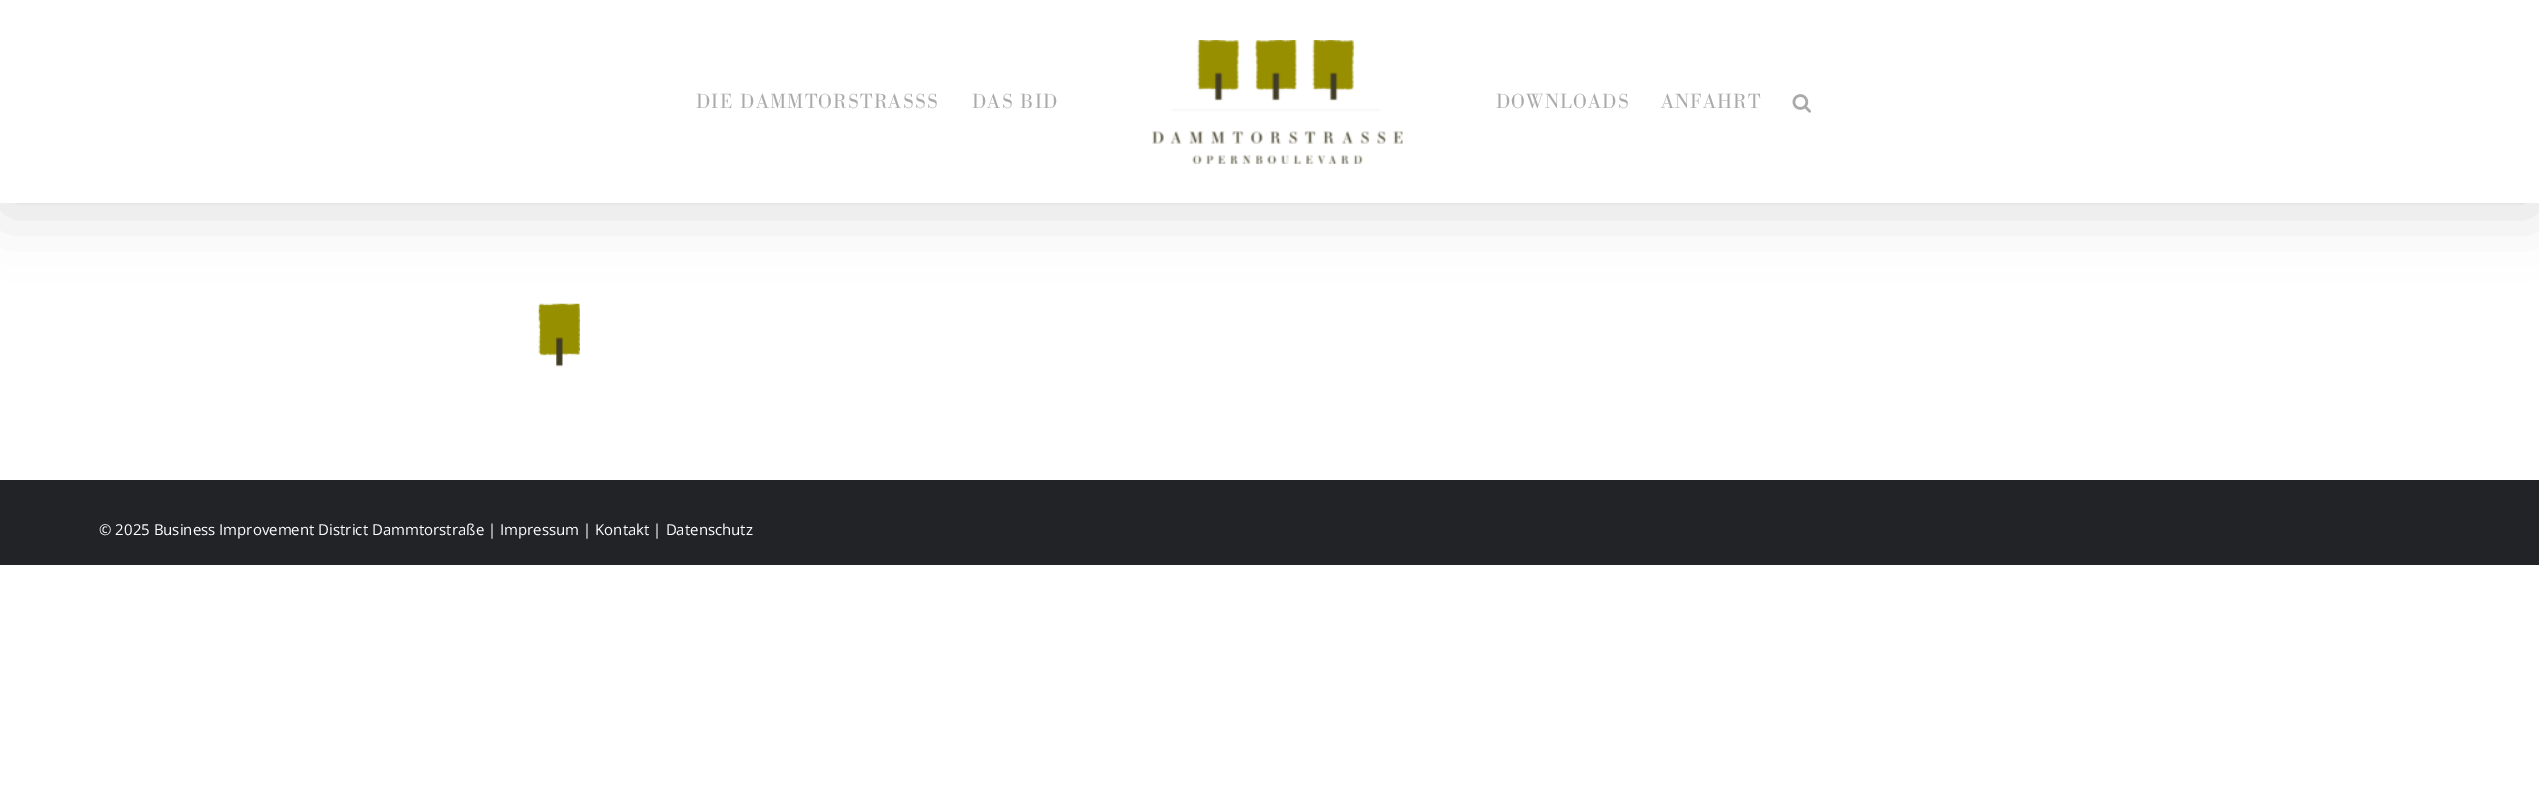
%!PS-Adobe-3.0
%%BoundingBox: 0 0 2539 802
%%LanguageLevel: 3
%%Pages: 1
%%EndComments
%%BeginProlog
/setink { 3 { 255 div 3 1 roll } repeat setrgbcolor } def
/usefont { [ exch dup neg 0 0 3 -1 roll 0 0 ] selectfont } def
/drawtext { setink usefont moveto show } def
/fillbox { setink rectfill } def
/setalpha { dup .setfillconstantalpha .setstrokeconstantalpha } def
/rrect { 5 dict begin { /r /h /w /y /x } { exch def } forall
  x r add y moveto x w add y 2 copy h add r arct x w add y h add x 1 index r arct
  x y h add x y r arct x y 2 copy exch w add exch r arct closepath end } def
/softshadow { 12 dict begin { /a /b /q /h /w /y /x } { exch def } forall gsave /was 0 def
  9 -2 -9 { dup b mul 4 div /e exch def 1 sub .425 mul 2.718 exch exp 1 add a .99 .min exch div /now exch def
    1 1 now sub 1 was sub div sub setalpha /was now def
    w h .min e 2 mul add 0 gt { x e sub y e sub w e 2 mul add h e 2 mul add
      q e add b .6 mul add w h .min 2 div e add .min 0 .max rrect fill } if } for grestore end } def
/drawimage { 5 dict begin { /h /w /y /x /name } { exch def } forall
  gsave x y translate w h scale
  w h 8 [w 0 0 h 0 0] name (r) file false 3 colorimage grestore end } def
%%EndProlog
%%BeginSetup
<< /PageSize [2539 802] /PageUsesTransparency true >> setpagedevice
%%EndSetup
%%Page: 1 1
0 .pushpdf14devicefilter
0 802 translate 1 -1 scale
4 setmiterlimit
0 0 2539 802 255 255 255 fillbox
(assets/img3.rgb) 538 303 42 64 drawimage
0 0 0 setink
3 15 2535 198 0 31 0.14 softshadow
0 0 2539 203 255 255 255 fillbox
/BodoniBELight-Light 20 usefont
170 170 170 setink
696 108 moveto 1.25 0 (DIE DAMMTORSTRASSS) ashow
972 108 moveto 1.25 0 (DAS BID) ashow
(assets/img1.rgb) 1152 40 251 124 drawimage
1496 108 moveto 1.25 0 (DOWNLOADS) ashow
1661 108 moveto 1.25 0 (ANFAHRT) ashow
(assets/img2.rgb) 1792 94 19 19 drawimage
0 480 2539 85 33 35 38 fillbox
(© 2025 Business Improvement District Dammtorstraße | Impressum | Kontakt | Datenschutz) 99 535 /OpenSans-Regular 15 255 255 255 drawtext
.poppdf14devicefilter showpage
%%EOF
